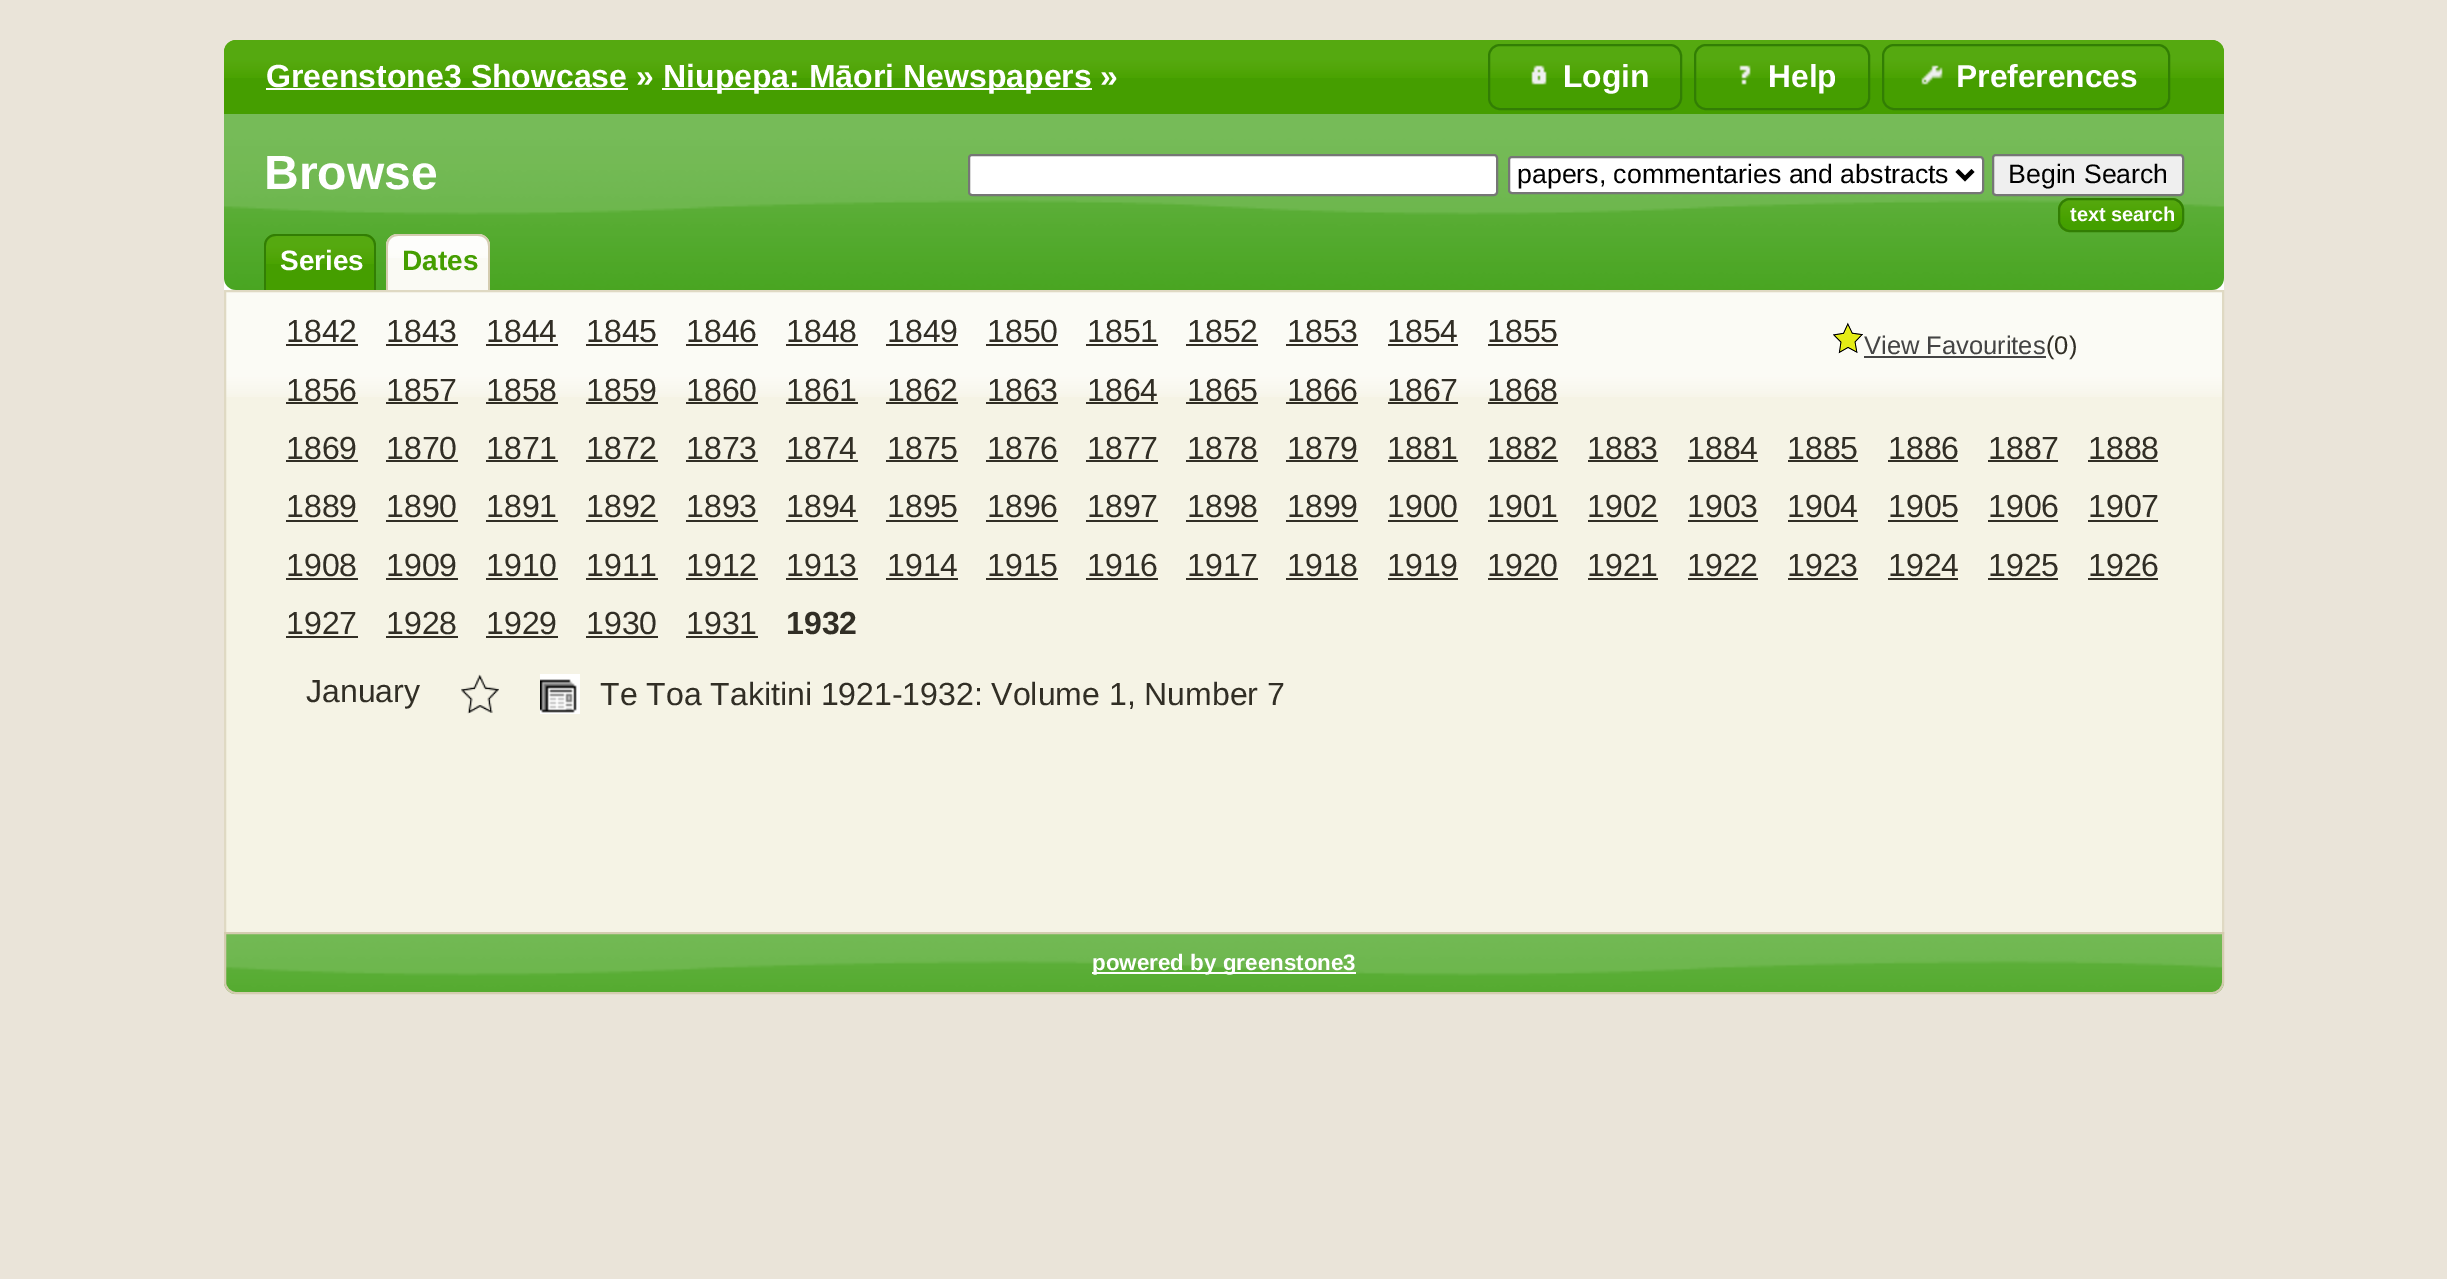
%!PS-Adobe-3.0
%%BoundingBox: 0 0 2447 1279
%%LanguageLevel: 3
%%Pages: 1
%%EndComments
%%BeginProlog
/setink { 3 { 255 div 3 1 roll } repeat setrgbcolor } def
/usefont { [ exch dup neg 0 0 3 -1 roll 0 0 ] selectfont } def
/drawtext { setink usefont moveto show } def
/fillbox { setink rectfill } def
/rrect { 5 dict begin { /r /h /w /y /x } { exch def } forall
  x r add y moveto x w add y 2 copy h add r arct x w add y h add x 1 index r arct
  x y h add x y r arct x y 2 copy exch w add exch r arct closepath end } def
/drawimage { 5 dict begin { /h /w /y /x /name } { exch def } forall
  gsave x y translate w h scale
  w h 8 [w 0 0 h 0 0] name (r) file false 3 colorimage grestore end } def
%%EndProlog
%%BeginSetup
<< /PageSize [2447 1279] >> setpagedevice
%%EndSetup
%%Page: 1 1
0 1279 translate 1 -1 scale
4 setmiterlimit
0 0 2447 1279 234 228 217 fillbox
69 158 0 setink
236 40 moveto 2212 40 lineto 2218.5 40 2224 45.5 2224 52 curveto 2224 114 lineto 224 114 lineto 224 52 lineto 224 45.5 229.5 40 236 40 curveto closepath fill
(assets/img1.rgb) 224 40 2000 38 drawimage
(Greenstone3 Showcase ») 266 87 /LiberationSans-Bold 32 255 255 255 drawtext
266 88 362 2 255 255 255 fillbox
662 88 430 2 255 255 255 fillbox
(Niupepa: Māori Newspapers ») 663 87 /LiberationSans-Bold 32 255 255 255 drawtext
69 158 0 setink
1488 44 194 66 12 rrect fill
(assets/img2.rgb) 1488 44 194 34 drawimage
50 126 4 setink
2 setlinewidth
1489 45 192 64 11 rrect stroke
(assets/img3.rgb) 1531 65 16 20 drawimage
(Login) 1563 87 /LiberationSans-Bold 31.75 255 255 255 drawtext
69 158 0 setink
1694 44 176 66 12 rrect fill
(assets/img4.rgb) 1694 44 176 34 drawimage
50 126 4 setink
1695 45 174 64 11 rrect stroke
(assets/img5.rgb) 1739 65 12 20 drawimage
(Help) 1768 87 /LiberationSans-Bold 31.75 255 255 255 drawtext
69 158 0 setink
1882 44 288 66 12 rrect fill
(assets/img6.rgb) 1882 44 288 34 drawimage
50 126 4 setink
1883 45 286 64 11 rrect stroke
(assets/img7.rgb) 1921 65 22 20 drawimage
(Preferences) 1956 87 /LiberationSans-Bold 31.75 255 255 255 drawtext
224 114 2000 880 12 rrect fill
(assets/img8.rgb) 224 114 2000 176 drawimage
(Browse) 264 189 /LiberationSans-Bold 48 255 255 255 drawtext
969 155 528 40 3 rrect gsave fill grestore
118 118 118 setink
stroke
255 255 255 setink
1509 157 474 36 3 rrect gsave fill grestore
118 118 118 setink
stroke
0 0 0 setink
4 setlinewidth
1957 170.5 moveto 1965 178.5 lineto 1973 170.5 lineto stroke
(papers, commentaries and abstracts) 1517 183 /LiberationSans-Regular 26.7 0 0 0 drawtext
239 239 239 setink
1993 155 190 40 3 rrect gsave fill grestore
118 118 118 setink
2 setlinewidth
stroke
(Begin Search) 2008 183 /LiberationSans-Regular 26.7 0 0 0 drawtext
(assets/img9.rgb) 2058 198 126 34 drawimage
50 126 4 setink
2059 199 124 32 11 rrect stroke
(text search) 2070 221 /LiberationSans-Bold 20 255 255 255 drawtext
69 158 0 setink
276 234 moveto 364 234 lineto 370.5 234 376 239.5 376 246 curveto 376 290 lineto 264 290 lineto 264 246 lineto 264 239.5 269.5 234 276 234 curveto closepath fill
(assets/img10.rgb) 264 234 112 30 drawimage
50 126 4 setink
276 234 moveto 364 234 lineto 371 234 376 239 376 246 curveto 376 290 lineto 264 290 lineto 264 246 lineto 264 239 269 234 276 234 curveto closepath 276 236 moveto 364 236 lineto 370 236 374 240 374 246 curveto 374 290 lineto 266 290 lineto 266 246 lineto 266 240 270 236 276 236 curveto closepath eofill
(Series) 280 270 /LiberationSans-Bold 28 255 255 255 drawtext
250 250 244 setink
398 234 moveto 478 234 lineto 484.5 234 490 239.5 490 246 curveto 490 290 lineto 386 290 lineto 386 246 lineto 386 239.5 391.5 234 398 234 curveto closepath fill
(assets/img11.rgb) 386 234 104 24 drawimage
212 204 176 setink
398 234 moveto 478 234 lineto 485 234 490 239 490 246 curveto 490 290 lineto 386 290 lineto 386 246 lineto 386 239 391 234 398 234 curveto closepath 398 236 moveto 478 236 lineto 484 236 488 240 488 246 curveto 488 290 lineto 388 290 lineto 388 246 lineto 388 240 392 236 398 236 curveto closepath eofill
(Dates) 402 270 /LiberationSans-Bold 28 69 158 0 drawtext
226 397 1996 535 245 243 229 fillbox
(assets/img12.rgb) 226 292 1996 105 drawimage
223 217 195 setink
225 291 1998 642 rectstroke
(1842) 286 342 /LiberationSans-Regular 32 49 46 37 drawtext
286 344 72 2 49 46 37 fillbox
(1843) 386 342 /LiberationSans-Regular 32 49 46 37 drawtext
386 344 72 2 49 46 37 fillbox
(1844) 486 342 /LiberationSans-Regular 32 49 46 37 drawtext
486 344 72 2 49 46 37 fillbox
(1845) 586 342 /LiberationSans-Regular 32 49 46 37 drawtext
586 344 72 2 49 46 37 fillbox
(1846) 686 342 /LiberationSans-Regular 32 49 46 37 drawtext
686 344 72 2 49 46 37 fillbox
(1848) 786 342 /LiberationSans-Regular 32 49 46 37 drawtext
786 344 72 2 49 46 37 fillbox
(1849) 887 342 /LiberationSans-Regular 32 49 46 37 drawtext
886 344 72 2 49 46 37 fillbox
(1850) 987 342 /LiberationSans-Regular 32 49 46 37 drawtext
986 344 72 2 49 46 37 fillbox
(1851) 1087 342 /LiberationSans-Regular 32 49 46 37 drawtext
1086 344 72 2 49 46 37 fillbox
(1852) 1187 342 /LiberationSans-Regular 32 49 46 37 drawtext
1186 344 72 2 49 46 37 fillbox
(1853) 1287 342 /LiberationSans-Regular 32 49 46 37 drawtext
1286 344 72 2 49 46 37 fillbox
(1854) 1387 342 /LiberationSans-Regular 32 49 46 37 drawtext
1388 344 70 2 49 46 37 fillbox
(1855) 1487 342 /LiberationSans-Regular 32 49 46 37 drawtext
1488 344 70 2 49 46 37 fillbox
(1856) 286 401 /LiberationSans-Regular 32 49 46 37 drawtext
286 402 72 2 49 46 37 fillbox
(1857) 386 401 /LiberationSans-Regular 32 49 46 37 drawtext
386 402 72 2 49 46 37 fillbox
(1858) 486 401 /LiberationSans-Regular 32 49 46 37 drawtext
486 402 72 2 49 46 37 fillbox
(1859) 586 401 /LiberationSans-Regular 32 49 46 37 drawtext
586 402 72 2 49 46 37 fillbox
(1860) 686 401 /LiberationSans-Regular 32 49 46 37 drawtext
686 402 72 2 49 46 37 fillbox
(1861) 786 401 /LiberationSans-Regular 32 49 46 37 drawtext
786 402 72 2 49 46 37 fillbox
(1862) 887 401 /LiberationSans-Regular 32 49 46 37 drawtext
886 402 72 2 49 46 37 fillbox
(1863) 987 401 /LiberationSans-Regular 32 49 46 37 drawtext
986 402 72 2 49 46 37 fillbox
(1864) 1087 401 /LiberationSans-Regular 32 49 46 37 drawtext
1086 402 72 2 49 46 37 fillbox
(1865) 1187 401 /LiberationSans-Regular 32 49 46 37 drawtext
1186 402 72 2 49 46 37 fillbox
(1866) 1287 401 /LiberationSans-Regular 32 49 46 37 drawtext
1286 402 72 2 49 46 37 fillbox
(1867) 1387 401 /LiberationSans-Regular 32 49 46 37 drawtext
1388 402 70 2 49 46 37 fillbox
(1868) 1487 401 /LiberationSans-Regular 32 49 46 37 drawtext
1488 402 70 2 49 46 37 fillbox
(1869) 286 459 /LiberationSans-Regular 32 49 46 37 drawtext
286 460 72 2 49 46 37 fillbox
(1870) 386 459 /LiberationSans-Regular 32 49 46 37 drawtext
386 460 72 2 49 46 37 fillbox
(1871) 486 459 /LiberationSans-Regular 32 49 46 37 drawtext
486 460 72 2 49 46 37 fillbox
(1872) 586 459 /LiberationSans-Regular 32 49 46 37 drawtext
586 460 72 2 49 46 37 fillbox
(1873) 686 459 /LiberationSans-Regular 32 49 46 37 drawtext
686 460 72 2 49 46 37 fillbox
(1874) 786 459 /LiberationSans-Regular 32 49 46 37 drawtext
786 460 72 2 49 46 37 fillbox
(1875) 887 459 /LiberationSans-Regular 32 49 46 37 drawtext
886 460 72 2 49 46 37 fillbox
(1876) 987 459 /LiberationSans-Regular 32 49 46 37 drawtext
986 460 72 2 49 46 37 fillbox
(1877) 1087 459 /LiberationSans-Regular 32 49 46 37 drawtext
1086 460 72 2 49 46 37 fillbox
(1878) 1187 459 /LiberationSans-Regular 32 49 46 37 drawtext
1186 460 72 2 49 46 37 fillbox
(1879) 1287 459 /LiberationSans-Regular 32 49 46 37 drawtext
1286 460 72 2 49 46 37 fillbox
(1881) 1387 459 /LiberationSans-Regular 32 49 46 37 drawtext
1388 460 70 2 49 46 37 fillbox
(1882) 1487 459 /LiberationSans-Regular 32 49 46 37 drawtext
1488 460 70 2 49 46 37 fillbox
(1883) 1587 459 /LiberationSans-Regular 32 49 46 37 drawtext
1588 460 70 2 49 46 37 fillbox
(1884) 1687 459 /LiberationSans-Regular 32 49 46 37 drawtext
1688 460 70 2 49 46 37 fillbox
(1885) 1787 459 /LiberationSans-Regular 32 49 46 37 drawtext
1788 460 70 2 49 46 37 fillbox
(1886) 1888 459 /LiberationSans-Regular 32 49 46 37 drawtext
1888 460 70 2 49 46 37 fillbox
(1887) 1988 459 /LiberationSans-Regular 32 49 46 37 drawtext
1988 460 70 2 49 46 37 fillbox
(1888) 2088 459 /LiberationSans-Regular 32 49 46 37 drawtext
2088 460 70 2 49 46 37 fillbox
(1889) 286 517 /LiberationSans-Regular 32 49 46 37 drawtext
286 520 72 2 49 46 37 fillbox
(1890) 386 517 /LiberationSans-Regular 32 49 46 37 drawtext
386 520 72 2 49 46 37 fillbox
(1891) 486 517 /LiberationSans-Regular 32 49 46 37 drawtext
486 520 72 2 49 46 37 fillbox
(1892) 586 517 /LiberationSans-Regular 32 49 46 37 drawtext
586 520 72 2 49 46 37 fillbox
(1893) 686 517 /LiberationSans-Regular 32 49 46 37 drawtext
686 520 72 2 49 46 37 fillbox
(1894) 786 517 /LiberationSans-Regular 32 49 46 37 drawtext
786 520 72 2 49 46 37 fillbox
(1895) 887 517 /LiberationSans-Regular 32 49 46 37 drawtext
886 520 72 2 49 46 37 fillbox
(1896) 987 517 /LiberationSans-Regular 32 49 46 37 drawtext
986 520 72 2 49 46 37 fillbox
(1897) 1087 517 /LiberationSans-Regular 32 49 46 37 drawtext
1086 520 72 2 49 46 37 fillbox
(1898) 1187 517 /LiberationSans-Regular 32 49 46 37 drawtext
1186 520 72 2 49 46 37 fillbox
(1899) 1287 517 /LiberationSans-Regular 32 49 46 37 drawtext
1286 520 72 2 49 46 37 fillbox
(1900) 1387 517 /LiberationSans-Regular 32 49 46 37 drawtext
1388 520 70 2 49 46 37 fillbox
(1901) 1487 517 /LiberationSans-Regular 32 49 46 37 drawtext
1488 520 70 2 49 46 37 fillbox
(1902) 1587 517 /LiberationSans-Regular 32 49 46 37 drawtext
1588 520 70 2 49 46 37 fillbox
(1903) 1687 517 /LiberationSans-Regular 32 49 46 37 drawtext
1688 520 70 2 49 46 37 fillbox
(1904) 1787 517 /LiberationSans-Regular 32 49 46 37 drawtext
1788 520 70 2 49 46 37 fillbox
(1905) 1888 517 /LiberationSans-Regular 32 49 46 37 drawtext
1888 520 70 2 49 46 37 fillbox
(1906) 1988 517 /LiberationSans-Regular 32 49 46 37 drawtext
1988 520 70 2 49 46 37 fillbox
(1907) 2088 517 /LiberationSans-Regular 32 49 46 37 drawtext
2088 520 70 2 49 46 37 fillbox
(1908) 286 576 /LiberationSans-Regular 32 49 46 37 drawtext
286 578 72 2 49 46 37 fillbox
(1909) 386 576 /LiberationSans-Regular 32 49 46 37 drawtext
386 578 72 2 49 46 37 fillbox
(1910) 486 576 /LiberationSans-Regular 32 49 46 37 drawtext
486 578 72 2 49 46 37 fillbox
(1911) 586 576 /LiberationSans-Regular 32 49 46 37 drawtext
586 578 72 2 49 46 37 fillbox
(1912) 686 576 /LiberationSans-Regular 32 49 46 37 drawtext
686 578 72 2 49 46 37 fillbox
(1913) 786 576 /LiberationSans-Regular 32 49 46 37 drawtext
786 578 72 2 49 46 37 fillbox
(1914) 887 576 /LiberationSans-Regular 32 49 46 37 drawtext
886 578 72 2 49 46 37 fillbox
(1915) 987 576 /LiberationSans-Regular 32 49 46 37 drawtext
986 578 72 2 49 46 37 fillbox
(1916) 1087 576 /LiberationSans-Regular 32 49 46 37 drawtext
1086 578 72 2 49 46 37 fillbox
(1917) 1187 576 /LiberationSans-Regular 32 49 46 37 drawtext
1186 578 72 2 49 46 37 fillbox
(1918) 1287 576 /LiberationSans-Regular 32 49 46 37 drawtext
1286 578 72 2 49 46 37 fillbox
(1919) 1387 576 /LiberationSans-Regular 32 49 46 37 drawtext
1388 578 70 2 49 46 37 fillbox
(1920) 1487 576 /LiberationSans-Regular 32 49 46 37 drawtext
1488 578 70 2 49 46 37 fillbox
(1921) 1587 576 /LiberationSans-Regular 32 49 46 37 drawtext
1588 578 70 2 49 46 37 fillbox
(1922) 1687 576 /LiberationSans-Regular 32 49 46 37 drawtext
1688 578 70 2 49 46 37 fillbox
(1923) 1787 576 /LiberationSans-Regular 32 49 46 37 drawtext
1788 578 70 2 49 46 37 fillbox
(1924) 1888 576 /LiberationSans-Regular 32 49 46 37 drawtext
1888 578 70 2 49 46 37 fillbox
(1925) 1988 576 /LiberationSans-Regular 32 49 46 37 drawtext
1988 578 70 2 49 46 37 fillbox
(1926) 2088 576 /LiberationSans-Regular 32 49 46 37 drawtext
2088 578 70 2 49 46 37 fillbox
(1927) 286 634 /LiberationSans-Regular 32 49 46 37 drawtext
286 636 72 2 49 46 37 fillbox
(1928) 386 634 /LiberationSans-Regular 32 49 46 37 drawtext
386 636 72 2 49 46 37 fillbox
(1929) 486 634 /LiberationSans-Regular 32 49 46 37 drawtext
486 636 72 2 49 46 37 fillbox
(1930) 586 634 /LiberationSans-Regular 32 49 46 37 drawtext
586 636 72 2 49 46 37 fillbox
(1931) 686 634 /LiberationSans-Regular 32 49 46 37 drawtext
686 636 72 2 49 46 37 fillbox
(1932) 786 634 /LiberationSans-Bold 32 49 46 37 drawtext
(January) 306 702 /LiberationSans-Regular 32 49 46 37 drawtext
(assets/img13.rgb) 461 674 38 40 drawimage
(assets/img14.rgb) 540 674 40 40 drawimage
(Te Toa Takitini 1921-1932: Volume 1, Number 7) 600 705 /LiberationSans-Regular 32 49 46 37 drawtext
(assets/img15.rgb) 1833 322 30 32 drawimage
(View Favourites) 1864 354 /LiberationSans-Regular 25.5 68 68 68 drawtext
1864 356 182 2 68 68 68 fillbox
(\(0\)) 2046 354 /LiberationSans-Regular 25.5 49 46 37 drawtext
(assets/img16.rgb) 224 934 2000 60 drawimage
212 204 176 setink
225 933 moveto 2223 933 lineto 2223 982 lineto 2223 988 2218 993 2212 993 curveto 236 993 lineto 230 993 225 988 225 982 curveto closepath stroke
1092 972 264 2 255 255 255 fillbox
(powered by greenstone3) 1092 970 /LiberationSans-Bold 22.4 255 255 255 drawtext
showpage
%%EOF
